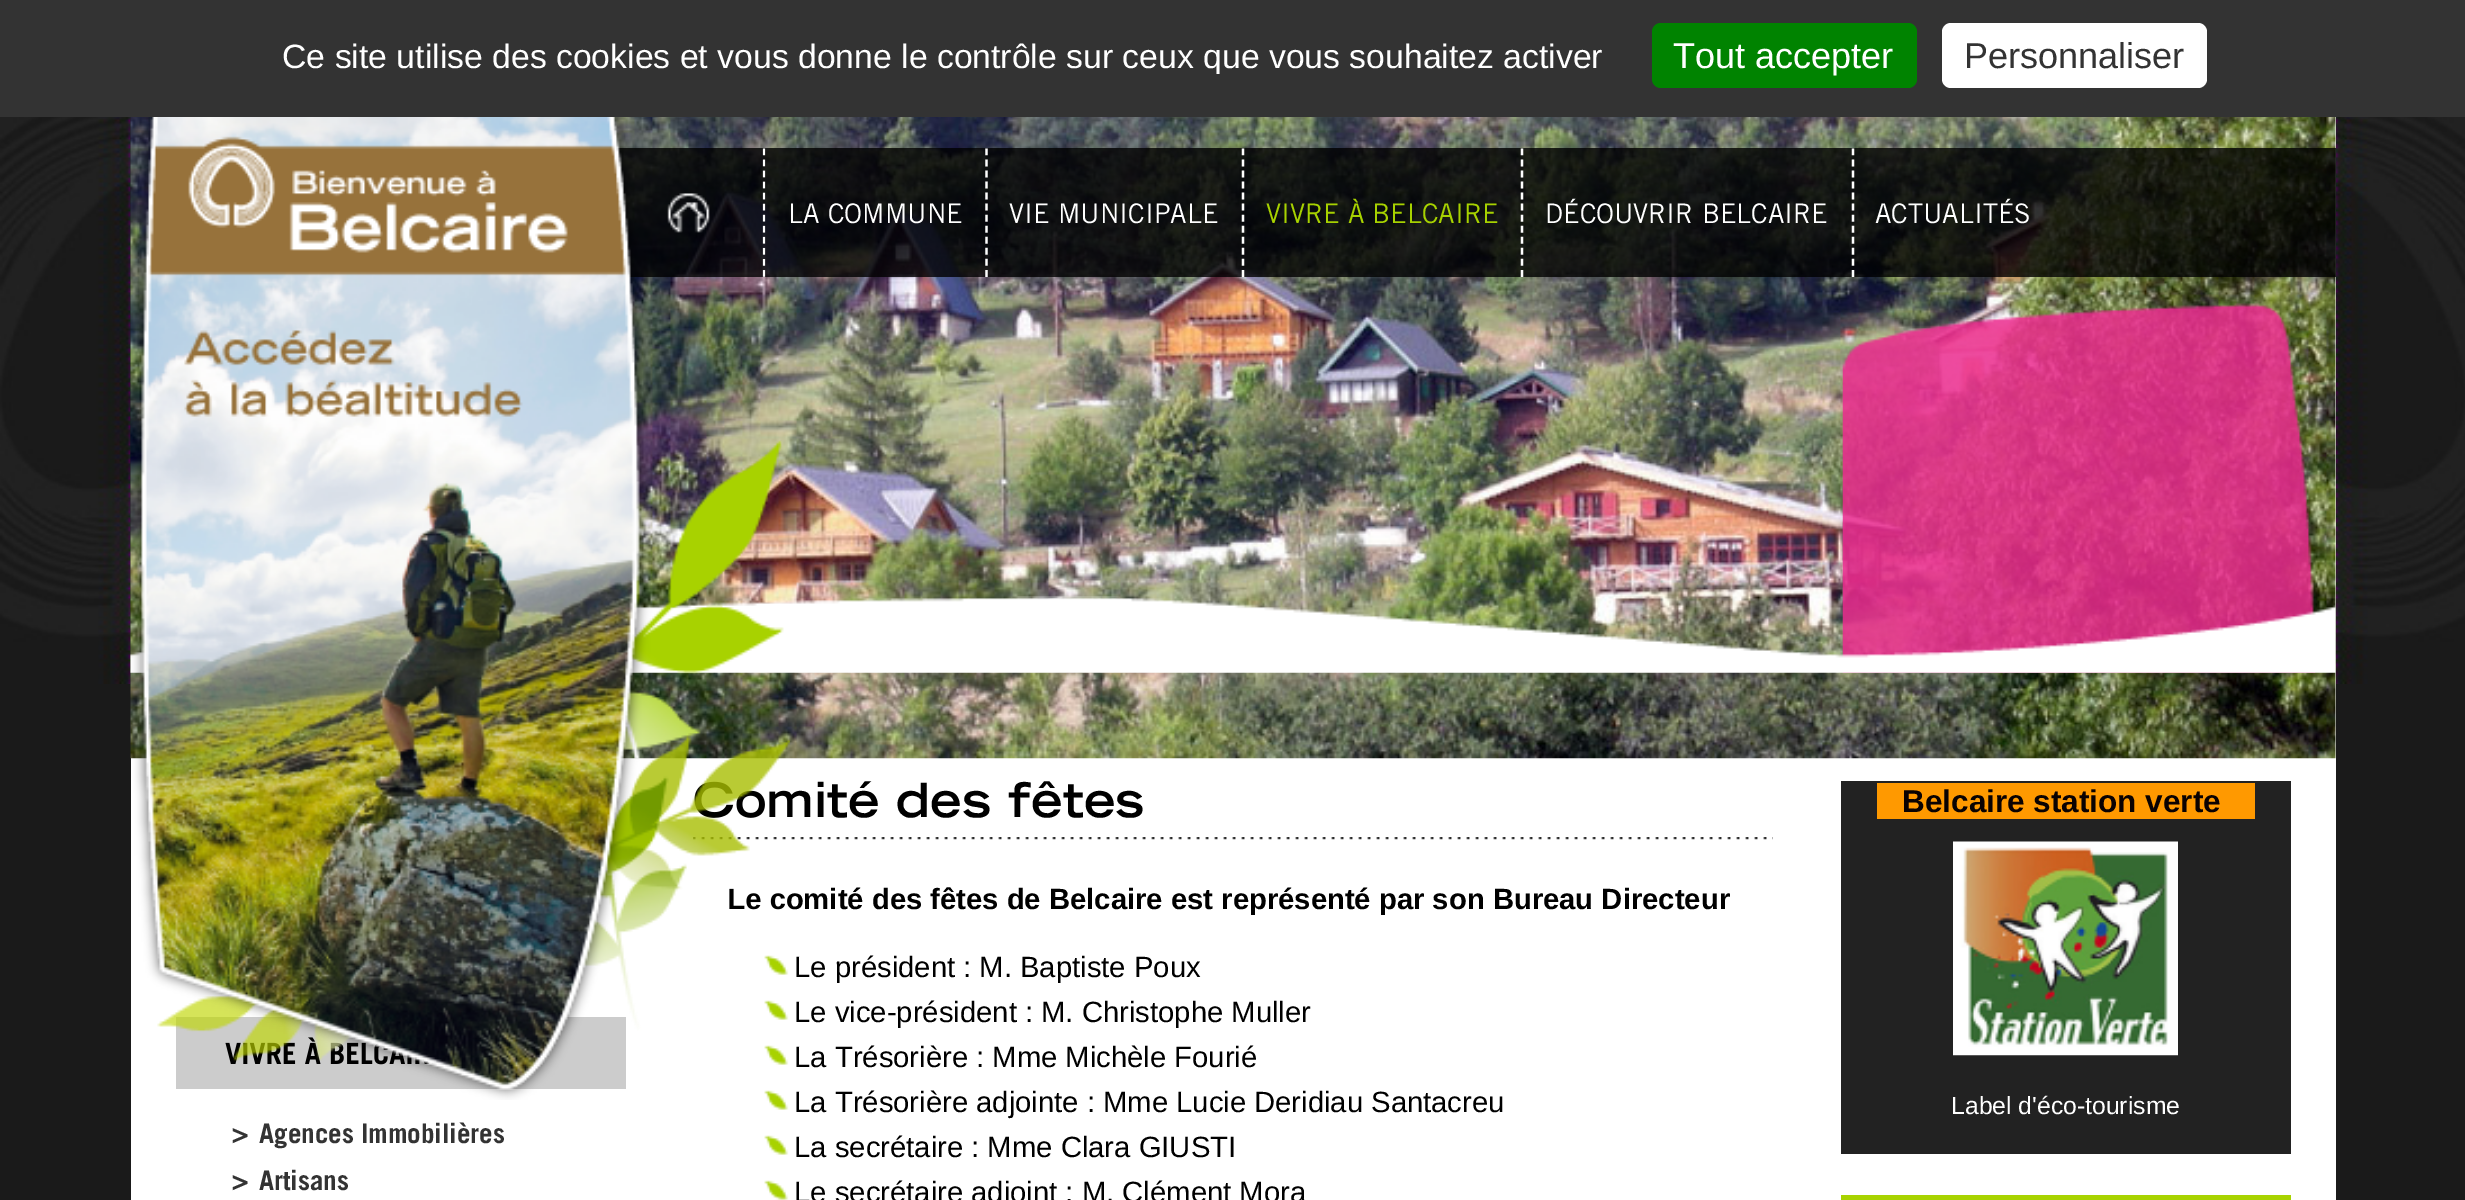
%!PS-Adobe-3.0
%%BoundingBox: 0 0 2465 1200
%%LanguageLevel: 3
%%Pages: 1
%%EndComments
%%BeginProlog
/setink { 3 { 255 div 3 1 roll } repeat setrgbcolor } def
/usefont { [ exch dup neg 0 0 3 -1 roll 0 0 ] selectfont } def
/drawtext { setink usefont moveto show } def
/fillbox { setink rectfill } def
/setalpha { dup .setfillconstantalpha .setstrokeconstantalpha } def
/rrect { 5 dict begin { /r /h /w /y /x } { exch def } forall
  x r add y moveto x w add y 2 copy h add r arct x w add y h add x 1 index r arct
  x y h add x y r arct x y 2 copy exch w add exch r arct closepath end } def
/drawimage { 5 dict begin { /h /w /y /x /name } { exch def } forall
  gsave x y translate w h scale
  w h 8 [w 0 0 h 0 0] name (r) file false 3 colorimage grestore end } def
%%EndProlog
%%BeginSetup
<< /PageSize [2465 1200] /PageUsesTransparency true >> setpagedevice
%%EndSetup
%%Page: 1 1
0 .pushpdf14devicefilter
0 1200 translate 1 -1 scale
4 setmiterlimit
0 0 2465 1200 26 26 26 fillbox
(assets/img1.rgb) 0 117 2465 567 drawimage
0 0 2465 117 51 51 51 fillbox
gsave
261 36 1366 38 rectclip
(Ce site utilise des cookies et vous donne le contrôle sur ceux que vous souhaitez activer) 282 68 /LiberationSans-Regular 33.75 255 255 255 drawtext
grestore
0 131 0 setink
1652 23 265 65 9 rrect fill
(Tout accepter) 1673 68 /LiberationSans-Regular 36 255 255 255 drawtext
1942 23 265 65 9 rrect fill
(Personnaliser) 1964 68 /LiberationSans-Regular 36 51 51 51 drawtext
131 117 2205 1083 255 255 255 fillbox
(assets/img2.rgb) 130 117 2206 642 drawimage
0.8 setalpha
616 148 1720 129 0 0 0 fillbox
1 setalpha
(assets/img4.rgb) 667 193 43 40 drawimage
255 255 255 setink
2.2 setlinewidth
[6.75 4.3] 0 setdash
764 148.5 moveto 764 277 lineto stroke
(assets/img5.rgb) 1842 303 474 370 drawimage
(assets/img6.rgb) 130 596 2206 77 drawimage
176 1017 450 72 204 204 204 fillbox
(VIVRE À BEL) 225 1064 /TradeGothic-Bold 29.25 0 0 0 drawtext
(assets/img7.rgb) 693 837 1080 3 drawimage
(omité des fêtes) 735 817 /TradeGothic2-Bold 47.25 0 0 0 drawtext
(Le comité des fêtes de Belcaire est représenté par son Bureau Directeur) 727 909 /LiberationSans-Bold 29.25 0 0 0 drawtext
(assets/img8.rgb) 764 955 25 20 drawimage
(assets/img8.rgb) 764 1000 25 20 drawimage
(assets/img8.rgb) 764 1045 25 20 drawimage
(assets/img8.rgb) 764 1090 25 20 drawimage
(assets/img3.rgb) 131 117 659 983 drawimage
(LA COMMUNE) 788 223 /TradeGothic-Regular 27 255 255 255 drawtext
986.5 148.5 moveto 986.5 277 lineto stroke
(VIE MUNICIPALE) 1009 223 /TradeGothic-Regular 27 255 255 255 drawtext
1243 148.5 moveto 1243 277 lineto stroke
(VIVRE À BELCAIRE) 1266 223 /TradeGothic-Regular 27 167 210 0 drawtext
255 255 255 setink
1522 148.5 moveto 1522 277 lineto stroke
(DÉCOUVRIR BELCAIRE) 1545 223 /TradeGothic-Regular 27 255 255 255 drawtext
1853 148.5 moveto 1853 277 lineto stroke
(ACTUALITÉS) 1875 223 /TradeGothic-Regular 27 255 255 255 drawtext
(>) 232 1143 /TradeGothic-Bold 27 51 51 51 drawtext
(Agences Immobilières) 259 1143 /TradeGothic-Bold 27 51 51 51 drawtext
(>) 232 1190 /TradeGothic-Bold 27 51 51 51 drawtext
(Artisans) 259 1190 /TradeGothic-Bold 27 51 51 51 drawtext
(Le président : M. Baptiste Poux) 794 977 /LiberationSans-Regular 29.25 0 0 0 drawtext
(Le vice-président : M. Christophe Muller) 794 1022 /LiberationSans-Regular 29.25 0 0 0 drawtext
(La Trésorière : Mme Michèle Fourié) 794 1067 /LiberationSans-Regular 29.25 0 0 0 drawtext
(La Trésorière adjointe : Mme Lucie Deridiau Santacreu) 794 1112 /LiberationSans-Regular 29.25 0 0 0 drawtext
(assets/img8.rgb) 764 1135 25 20 drawimage
(La secrétaire : Mme Clara GIUSTI) 794 1157 /LiberationSans-Regular 29.25 0 0 0 drawtext
(assets/img8.rgb) 764 1180 25 20 drawimage
(Le secrétaire adjoint : M. Clément Mora) 794 1202 /LiberationSans-Regular 29.25 0 0 0 drawtext
1841 781 450 373 34 34 34 fillbox
1877 783 378 36 255 153 0 fillbox
(Belcaire station verte) 1902 812 /LiberationSans-Bold 31.5 10 2 2 drawtext
(assets/img9.rgb) 1953 841 225 215 drawimage
(Label d'éco-tourisme) 1951 1114 /LiberationSans-Regular 24.75 255 255 255 drawtext
1841 1195 450 5 168 211 0 fillbox
.poppdf14devicefilter showpage
%%EOF
